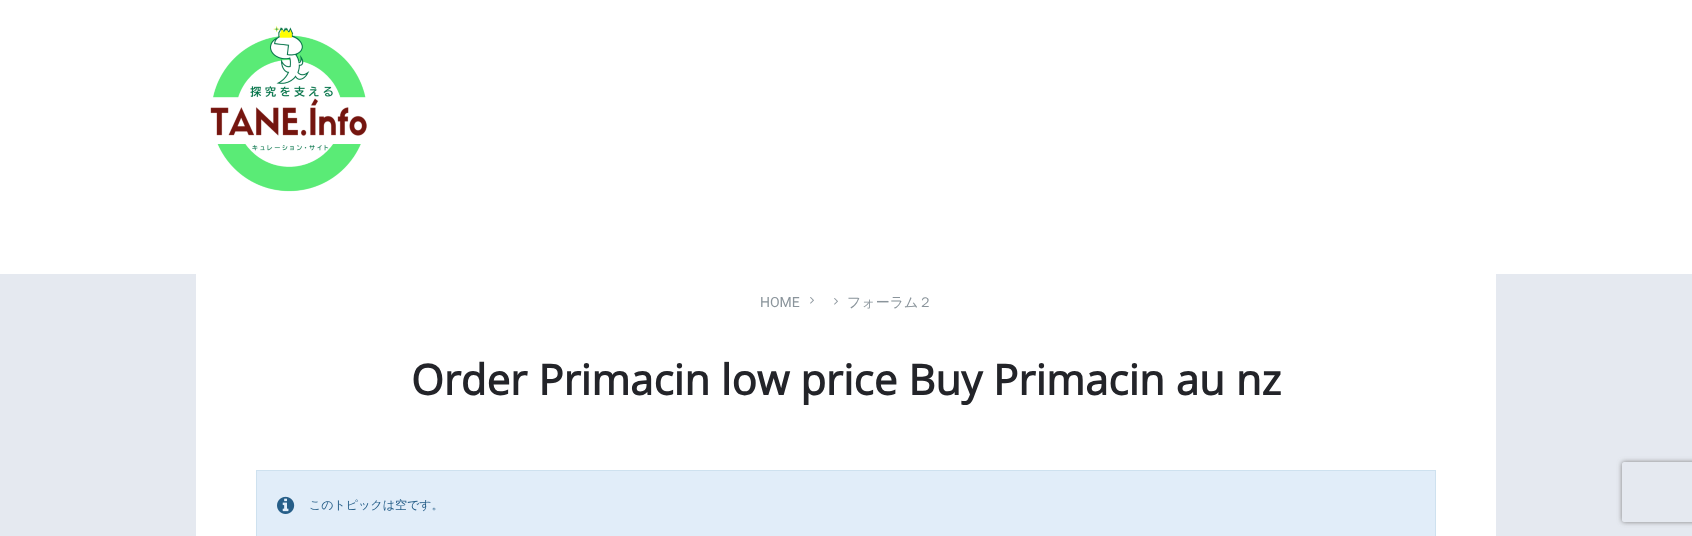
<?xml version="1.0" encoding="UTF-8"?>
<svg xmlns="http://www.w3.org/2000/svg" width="1692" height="536">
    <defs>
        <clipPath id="clip1"><path d="M 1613 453 H 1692 V 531 H 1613 Z M 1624 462 H 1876 C 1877 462 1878 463 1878 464 V 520 C 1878 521 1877 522 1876 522 H 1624 C 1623 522 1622 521 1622 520 V 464 C 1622 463 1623 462 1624 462 Z" clip-rule="evenodd"/></clipPath>
        <filter id="blur1" x="-50%" y="-200%" width="200%" height="500%"><feGaussianBlur stdDeviation="2.5"/></filter>
    </defs>
    <rect width="100%" height="100%" fill="#E5E9F0"/>
    <rect x="0" y="0" width="1692" height="274" fill="#FFFFFF"/>
    <image x="210" y="25" width="157" height="167" href="img_01.png"/>
    <rect x="196" y="274" width="1300" height="262" fill="#FFFFFF"/>
    <text x="760" y="307" font-family="Roboto" font-size="14" fill="#8A949B">HOME</text>
    <image x="810" y="297" width="4" height="7" href="img_02.png"/>
    <image x="834" y="298" width="4" height="7" href="img_02.png"/>
    <text x="847" y="307" font-family="WenQuanYi Zen Hei" font-size="14" font-weight="500" fill="#8A949B">フォーラム２</text>
    <text x="411" y="395" font-family="Open Sans" font-size="42" font-weight="700" fill="#232429">Order Primacin low price Buy Primacin au nz</text>
    <rect x="256.5" y="470.5" width="1179" height="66" fill="#E1EDF9" stroke="#CEE1EF"/>
    <image x="277" y="496" width="18" height="18" href="img_03.png"/>
    <text x="309" y="509" font-family="WenQuanYi Zen Hei" font-size="12" font-weight="500" fill="#265E88">このトピックは空です。</text>
    <g clip-path="url(#clip1)">
        <rect x="1622" y="462" width="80" height="60" rx="2" fill="#808080" filter="url(#blur1)"/>
    </g>
</svg>
